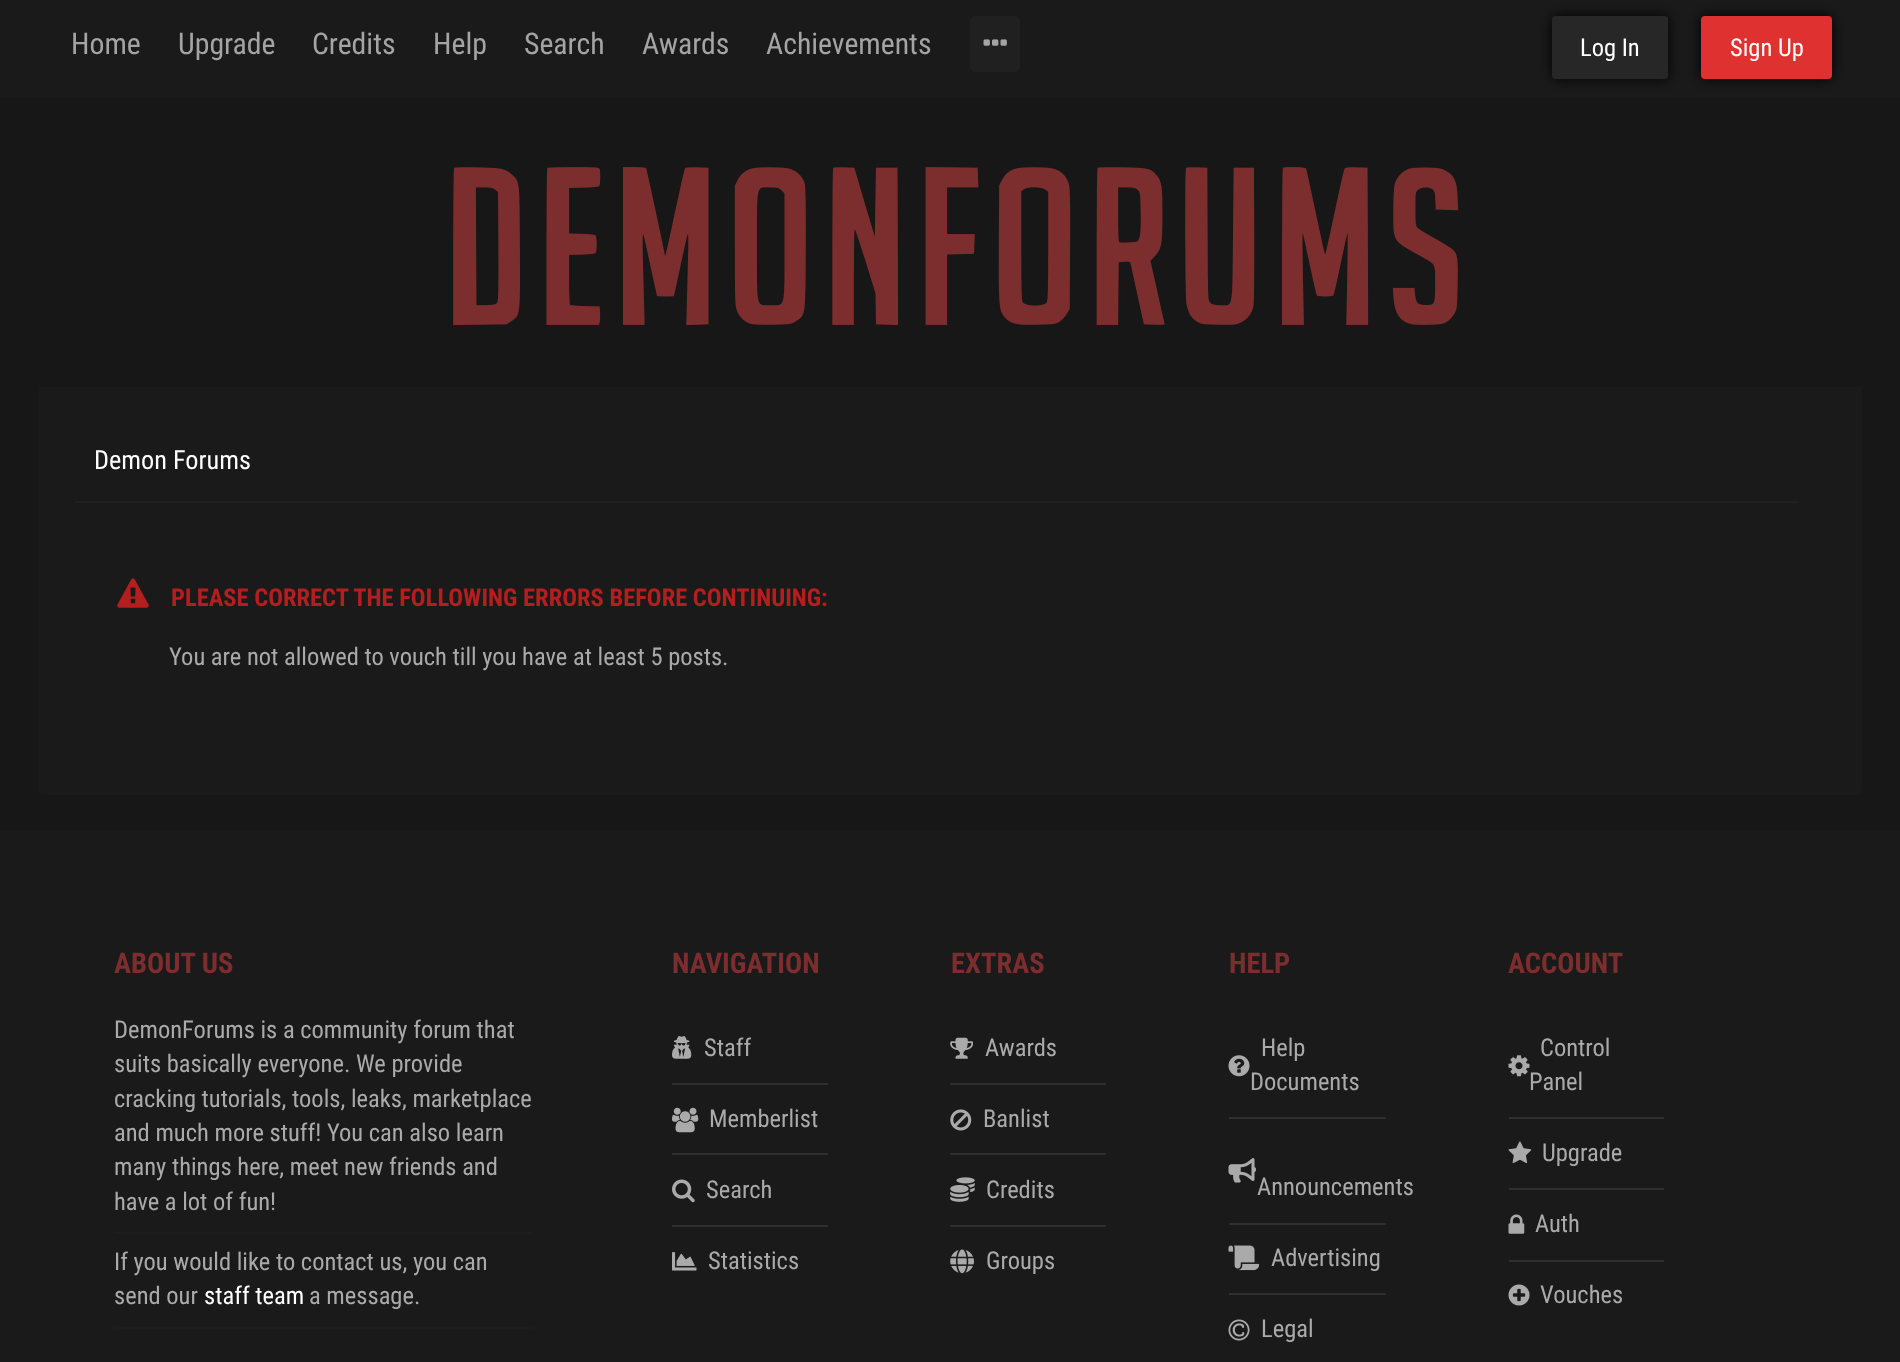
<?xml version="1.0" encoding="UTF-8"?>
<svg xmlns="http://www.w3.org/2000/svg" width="1900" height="1362">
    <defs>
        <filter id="blur1" x="-50%" y="-200%" width="200%" height="500%"><feGaussianBlur stdDeviation="7"/></filter>
    </defs>
    <rect width="100%" height="100%" fill="#171717"/>
    <rect x="0" y="0" width="1900" height="98" fill="#1A1A1A"/>
    <text x="71" y="54" font-family="Roboto Condensed" font-size="29.75" fill="#A4A4A4">Home</text>
    <text x="178" y="54" font-family="Roboto Condensed" font-size="29.75" fill="#A4A4A4">Upgrade</text>
    <text x="312" y="54" font-family="Roboto Condensed" font-size="29.75" fill="#A4A4A4">Credits</text>
    <text x="433" y="54" font-family="Roboto Condensed" font-size="29.75" fill="#A4A4A4">Help</text>
    <text x="524" y="54" font-family="Roboto Condensed" font-size="29.75" fill="#A4A4A4">Search</text>
    <text x="642" y="54" font-family="Roboto Condensed" font-size="29.75" fill="#A4A4A4">Awards</text>
    <text x="766" y="54" font-family="Roboto Condensed" font-size="29.75" fill="#A4A4A4">Achievements</text>
    <rect x="970" y="16" width="50" height="56" rx="5" fill="#202020"/>
    <image x="983" y="39" width="24" height="7" href="img_01.png"/>
    <rect x="1552" y="16" width="116" height="63" rx="4" fill="#101010" filter="url(#blur1)"/>
    <rect x="1552" y="16" width="116" height="63" rx="4" fill="#272727"/>
    <text x="1580" y="56" font-family="Roboto Condensed" font-size="24.5" fill="#FFFFFF">Log In</text>
    <rect x="1701" y="16" width="131" height="63" rx="4" fill="#101010" filter="url(#blur1)"/>
    <rect x="1701" y="16" width="131" height="63" rx="4" fill="#E03131"/>
    <text x="1730" y="56" font-family="Roboto Condensed" font-size="24.5" fill="#FFFFFF">Sign Up</text>
    <image x="453" y="167" width="1006" height="159" href="img_02.png"/>
    <path d="M 39 380 H 1862 V 791 C 1862 793 1860 795 1858 795 H 43 C 41 795 39 793 39 791 Z" fill="#1A1A1A"/>
    <rect x="39" y="380" width="1823" height="7" fill="#171717"/>
    <rect x="75" y="501" width="1724" height="2" fill="#202020"/>
    <text x="94" y="469" font-family="Roboto Condensed" font-size="26.25" fill="#FFFFFF">Demon Forums</text>
    <image x="117" y="578" width="32" height="30" href="img_03.png"/>
    <text x="171" y="606" font-family="Roboto Condensed" font-size="24.5" font-weight="700" fill="#B51E1E">PLEASE CORRECT THE FOLLOWING ERRORS BEFORE CONTINUING:</text>
    <text x="169" y="665" font-family="Roboto Condensed" font-size="24.5" fill="#AAAAAA">You are not allowed to vouch till you have at least 5 posts.</text>
    <rect x="0" y="830" width="1900" height="532" fill="#1A1A1A"/>
    <text x="114" y="973" font-family="Roboto Condensed" font-size="28.5" font-weight="700" fill="#7C2E2E">ABOUT US</text>
    <text font-family="Roboto Condensed" font-size="24.5" fill="#AAAAAA">
        <tspan x="114" y="1038">DemonForums is a community forum that</tspan>
        <tspan x="114" y="1072">suits basically everyone. We provide</tspan>
        <tspan x="114" y="1107">cracking tutorials, tools, leaks, marketplace</tspan>
        <tspan x="114" y="1141">and much more stuff! You can also learn</tspan>
        <tspan x="114" y="1175">many things here, meet new friends and</tspan>
        <tspan x="114" y="1210">have a lot of fun!</tspan>
    </text>
    <rect x="114" y="1232" width="418" height="2" fill="#1D1D1D"/>
    <text font-family="Roboto Condensed" font-size="24.5" fill="#AAAAAA">
        <tspan x="114" y="1270">If you would like to contact us, you can</tspan>
        <tspan x="114" y="1304">send our</tspan>
    </text>
    <text x="204" y="1304" font-family="Roboto Condensed" font-size="24.5" fill="#FFFFFF">staff team</text>
    <text x="309" y="1304" font-family="Roboto Condensed" font-size="24.5" fill="#AAAAAA">a message.</text>
    <rect x="114" y="1327" width="418" height="2" fill="#1D1D1D"/>
    <text x="672" y="973" font-family="Roboto Condensed" font-size="28.5" font-weight="700" fill="#7C2E2E">NAVIGATION</text>
    <rect x="672" y="1083" width="156" height="2" fill="#2F2F2F"/>
    <image x="672" y="1036" width="20" height="23" href="img_04.png"/>
    <text x="704" y="1056" font-family="Roboto Condensed" font-size="24.5" fill="#AAAAAA">Staff</text>
    <rect x="672" y="1153" width="156" height="2" fill="#2F2F2F"/>
    <image x="672" y="1107" width="27" height="26" href="img_05.png"/>
    <text x="709" y="1127" font-family="Roboto Condensed" font-size="24.5" fill="#AAAAAA">Memberlist</text>
    <rect x="672" y="1225" width="156" height="2" fill="#2F2F2F"/>
    <image x="672" y="1179" width="23" height="24" href="img_06.png"/>
    <text x="706" y="1198" font-family="Roboto Condensed" font-size="24.5" fill="#AAAAAA">Search</text>
    <image x="672" y="1252" width="25" height="19" href="img_07.png"/>
    <text x="708" y="1269" font-family="Roboto Condensed" font-size="24.5" fill="#AAAAAA">Statistics</text>
    <text x="951" y="973" font-family="Roboto Condensed" font-size="28.5" font-weight="700" fill="#7C2E2E">EXTRAS</text>
    <rect x="950" y="1083" width="156" height="2" fill="#2F2F2F"/>
    <image x="950" y="1037" width="23" height="22" href="img_08.png"/>
    <text x="985" y="1056" font-family="Roboto Condensed" font-size="24.5" fill="#AAAAAA">Awards</text>
    <rect x="950" y="1153" width="156" height="2" fill="#2F2F2F"/>
    <image x="950" y="1109" width="22" height="22" href="img_09.png"/>
    <text x="983" y="1127" font-family="Roboto Condensed" font-size="24.5" fill="#AAAAAA">Banlist</text>
    <rect x="950" y="1225" width="156" height="2" fill="#2F2F2F"/>
    <image x="950" y="1177" width="25" height="25" href="img_10.png"/>
    <text x="986" y="1198" font-family="Roboto Condensed" font-size="24.5" fill="#AAAAAA">Credits</text>
    <image x="950" y="1249" width="24" height="25" href="img_11.png"/>
    <text x="986" y="1269" font-family="Roboto Condensed" font-size="24.5" fill="#AAAAAA">Groups</text>
    <text x="1229" y="973" font-family="Roboto Condensed" font-size="28.5" font-weight="700" fill="#7C2E2E">HELP</text>
    <rect x="1229" y="1117" width="157" height="2" fill="#2F2F2F"/>
    <text x="1261" y="1056" font-family="Roboto Condensed" font-size="24.5" fill="#AAAAAA">Help</text>
    <image x="1228" y="1055" width="22" height="22" href="img_12.png"/>
    <text x="1250" y="1090" font-family="Roboto Condensed" font-size="24.5" fill="#AAAAAA">Documents</text>
    <rect x="1229" y="1223" width="157" height="2" fill="#2F2F2F"/>
    <image x="1228" y="1158" width="29" height="25" href="img_13.png"/>
    <text x="1257" y="1195" font-family="Roboto Condensed" font-size="24.5" fill="#AAAAAA">Announcements</text>
    <rect x="1229" y="1293" width="157" height="2" fill="#2F2F2F"/>
    <image x="1228" y="1245" width="32" height="26" href="img_14.png"/>
    <text x="1271" y="1266" font-family="Roboto Condensed" font-size="24.5" fill="#AAAAAA">Advertising</text>
    <image x="1228" y="1319" width="22" height="22" href="img_15.png"/>
    <text x="1261" y="1337" font-family="Roboto Condensed" font-size="24.5" fill="#AAAAAA">Legal</text>
    <text x="1508" y="973" font-family="Roboto Condensed" font-size="28.5" font-weight="700" fill="#7C2E2E">ACCOUNT</text>
    <rect x="1509" y="1117" width="155" height="2" fill="#2F2F2F"/>
    <text x="1540" y="1056" font-family="Roboto Condensed" font-size="24.5" fill="#AAAAAA">Control</text>
    <image x="1508" y="1055" width="22" height="22" href="img_16.png"/>
    <text x="1529" y="1090" font-family="Roboto Condensed" font-size="24.5" fill="#AAAAAA">Panel</text>
    <rect x="1509" y="1188" width="155" height="2" fill="#2F2F2F"/>
    <image x="1508" y="1141" width="24" height="23" href="img_17.png"/>
    <text x="1542" y="1161" font-family="Roboto Condensed" font-size="24.5" fill="#AAAAAA">Upgrade</text>
    <rect x="1509" y="1260" width="155" height="2" fill="#2F2F2F"/>
    <image x="1508" y="1214" width="17" height="20" href="img_18.png"/>
    <text x="1535" y="1232" font-family="Roboto Condensed" font-size="24.5" fill="#AAAAAA">Auth</text>
    <image x="1508" y="1284" width="22" height="22" href="img_19.png"/>
    <text x="1540" y="1303" font-family="Roboto Condensed" font-size="24.5" fill="#AAAAAA">Vouches</text>
</svg>
